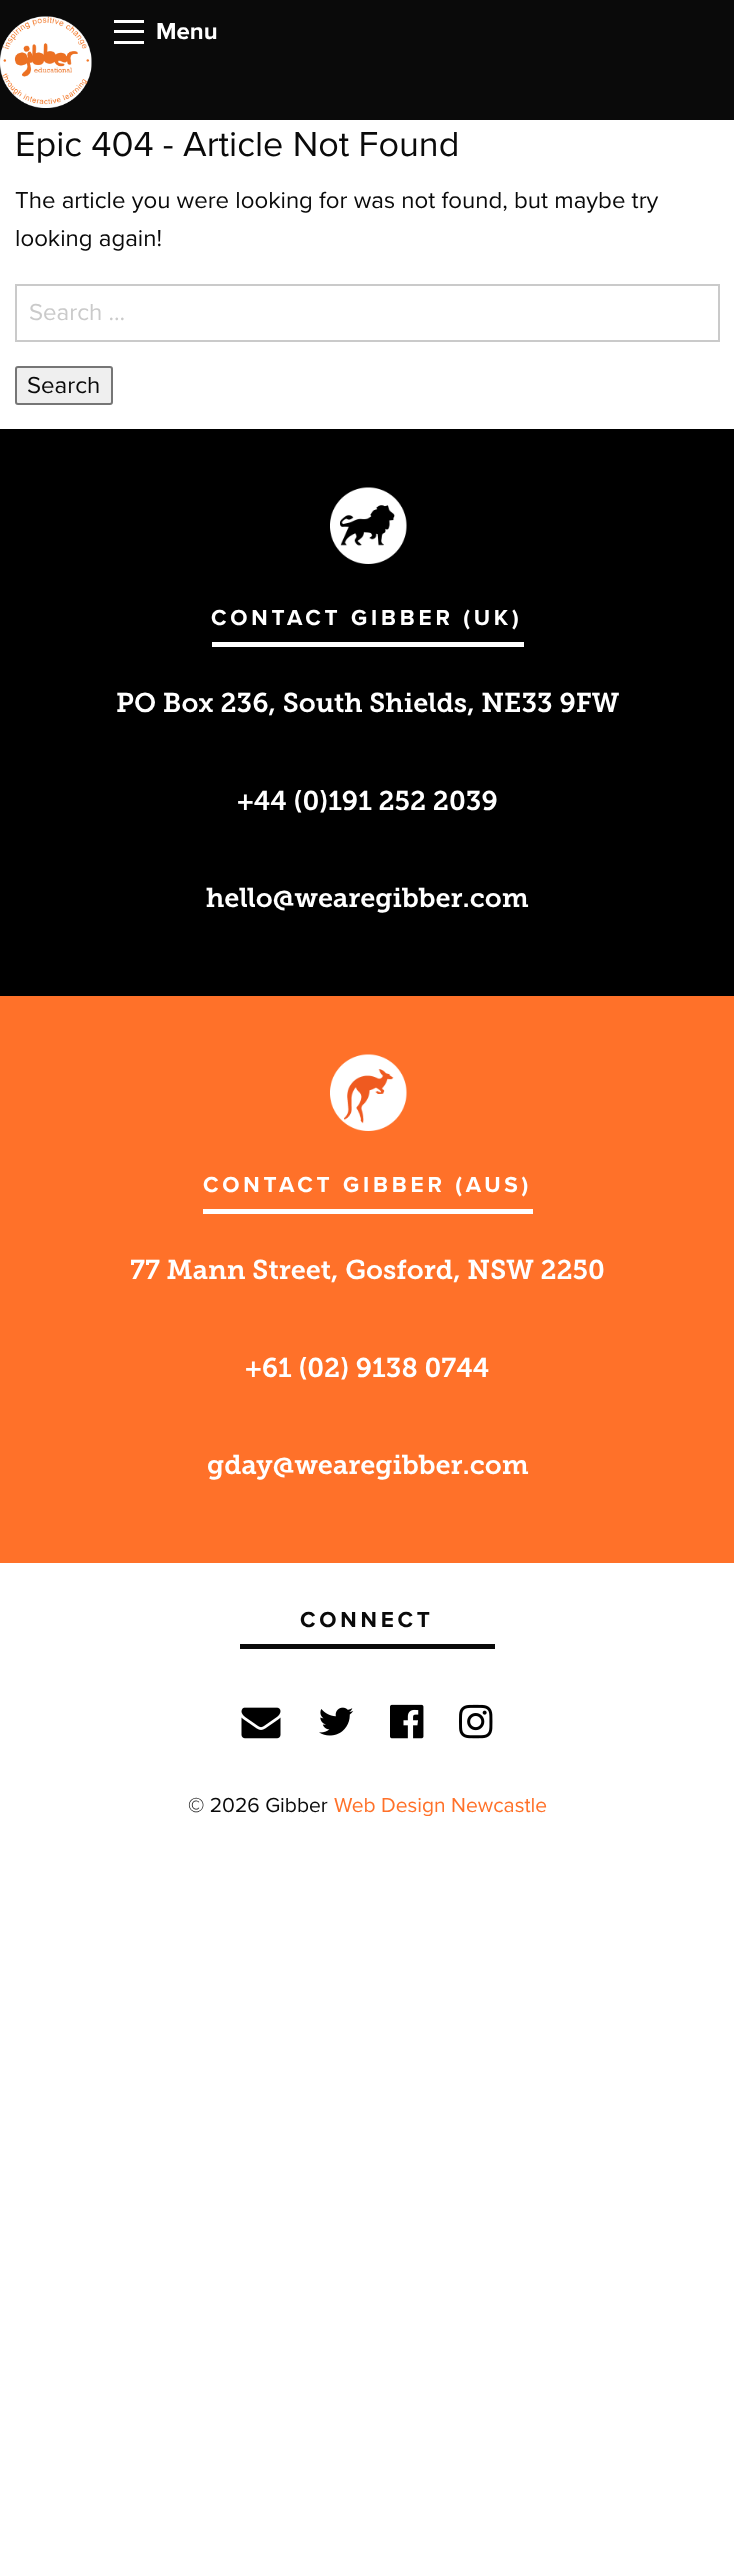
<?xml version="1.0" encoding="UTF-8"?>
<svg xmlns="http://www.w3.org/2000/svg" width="734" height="2567">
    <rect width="100%" height="100%" fill="#FFFFFF"/>
    <rect x="0" y="0" width="734" height="120" fill="#0A0A0A"/>
    <image x="0" y="16" width="92" height="92" href="img_01.png"/>
    <rect x="114" y="41" width="30" height="3" fill="#FEFEFE"/>
    <rect x="114" y="30" width="30" height="3" fill="#FEFEFE"/>
    <rect x="114" y="20" width="30" height="3" fill="#FEFEFE"/>
    <text x="156" y="39" font-family="Proxima Nova" font-size="24" font-weight="700" fill="#FFFFFF">Menu</text>
    <text x="15" y="156" font-family="Proxima Nova" font-size="36" fill="#0A0A0A">Epic 404 - Article Not Found</text>
    <text font-family="Proxima Nova" font-size="24" fill="#0A0A0A">
        <tspan x="15" y="208">The article you were looking for was not found, but maybe try</tspan>
        <tspan x="15" y="246">looking again!</tspan>
    </text>
    <rect x="16" y="285" width="703" height="56" fill="none" stroke="#CACACA" stroke-width="2"/>
    <text x="29" y="320" font-family="Proxima Nova" font-size="24" fill="#CACACA">Search …</text>
    <rect x="16" y="367" width="96" height="37" rx="2" fill="#EFEFEF" stroke="#767676" stroke-width="2"/>
    <text x="27" y="393" font-family="Proxima Nova" font-size="24" fill="#0A0A0A">Search</text>
    <rect x="0" y="429" width="734" height="567" fill="#000000"/>
    <image x="330" y="487" width="77" height="77" href="img_02.png"/>
    <rect x="212" y="642" width="312" height="5" fill="#FFFFFF"/>
    <text x="211" y="625" font-family="Proxima Nova" font-size="22.5" font-weight="700" letter-spacing="3.8" fill="#FFFFFF">CONTACT GIBBER (UK)</text>
    <text x="116" y="712" font-family="'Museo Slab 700'" font-size="27" font-weight="600" fill="#FFFFFF">PO Box 236, South Shields, NE33 9FW</text>
    <text x="237" y="810" font-family="'Museo Slab 700'" font-size="27" font-weight="600" fill="#FFFFFF">+44 (0)191 252 2039</text>
    <text x="206" y="907" font-family="'Museo Slab 700'" font-size="27" font-weight="600" fill="#FFFFFF">hello@wearegibber.com</text>
    <rect x="0" y="996" width="734" height="567" fill="#FF7129"/>
    <image x="330" y="1054" width="77" height="77" href="img_03.png"/>
    <rect x="203" y="1209" width="330" height="5" fill="#FFFFFF"/>
    <text x="203" y="1192" font-family="Proxima Nova" font-size="22.5" font-weight="700" letter-spacing="3.8" fill="#FFFFFF">CONTACT GIBBER (AUS)</text>
    <text x="130" y="1279" font-family="'Museo Slab 700'" font-size="27" font-weight="600" fill="#FFFFFF">77 Mann Street, Gosford, NSW 2250</text>
    <text x="245" y="1377" font-family="'Museo Slab 700'" font-size="27" font-weight="600" fill="#FFFFFF">+61 (02) 9138 0744</text>
    <text x="207" y="1474" font-family="'Museo Slab 700'" font-size="27" font-weight="600" fill="#FFFFFF">gday@wearegibber.com</text>
    <rect x="240" y="1644" width="255" height="5" fill="#0A0A0A"/>
    <text x="300" y="1627" font-family="Proxima Nova" font-size="22.5" font-weight="700" letter-spacing="3.8" fill="#0A0A0A">CONNECT</text>
    <image x="241" y="1707" width="40" height="32" href="img_04.png"/>
    <image x="319" y="1707" width="35" height="29" href="img_05.png"/>
    <image x="390" y="1704" width="34" height="35" href="img_06.png"/>
    <image x="459" y="1704" width="34" height="35" href="img_07.png"/>
    <text x="188" y="1812" font-family="Proxima Nova" font-size="21" fill="#0A0A0A">© 2026 Gibber</text>
    <text x="334" y="1812" font-family="Proxima Nova" font-size="21" fill="#FF7129">Web Design Newcastle</text>
</svg>
